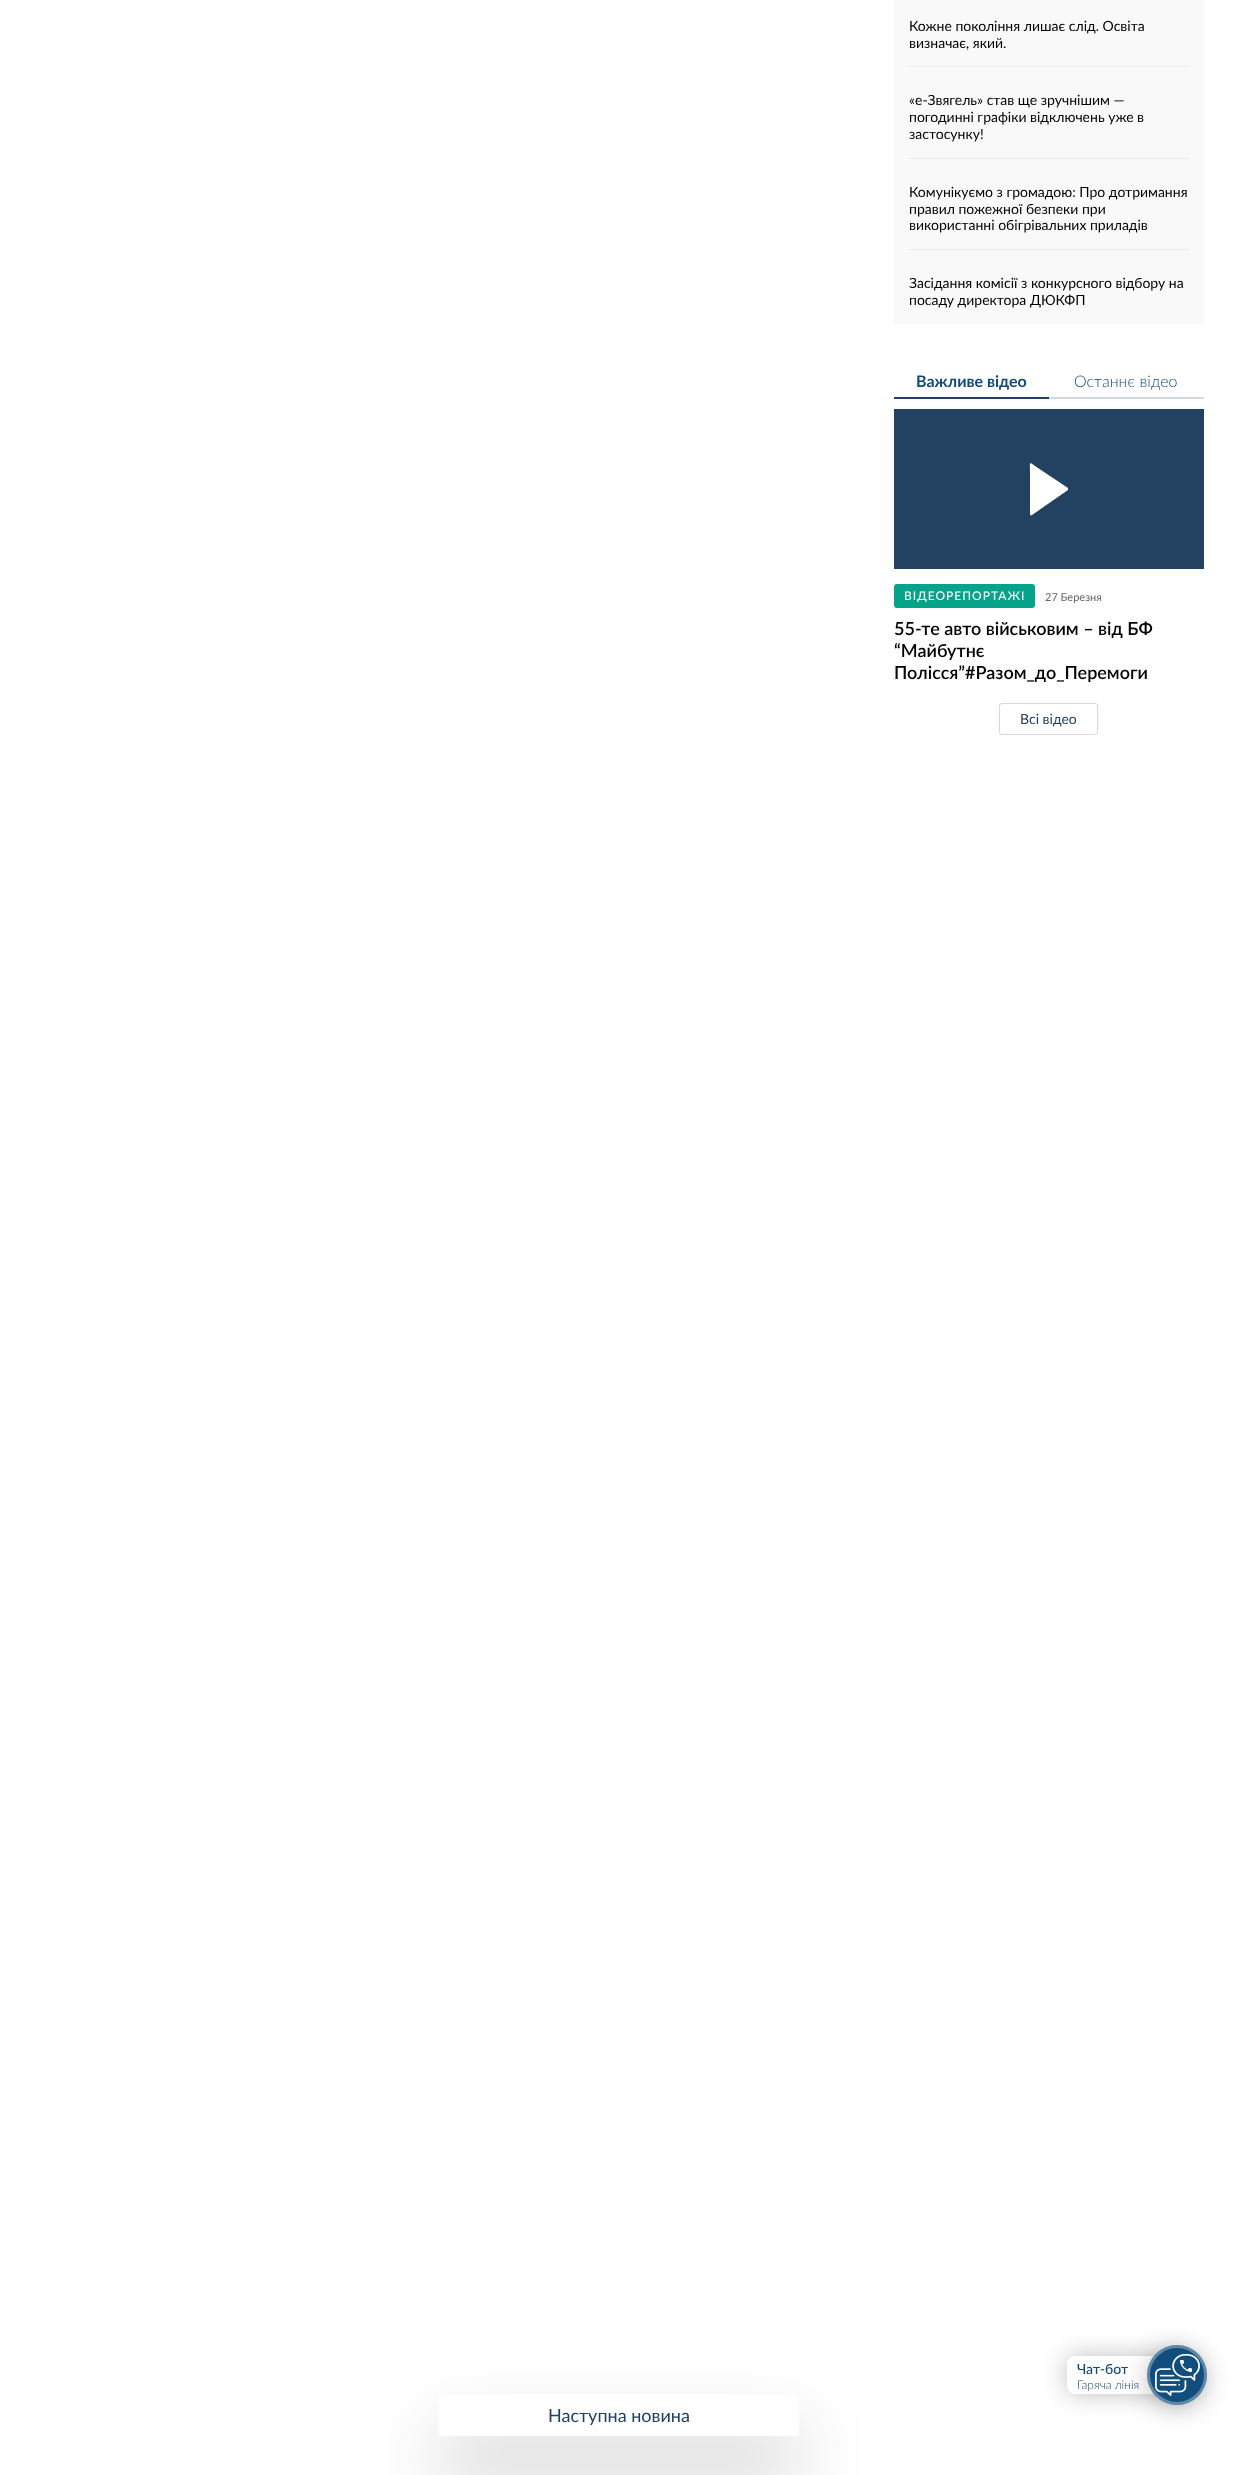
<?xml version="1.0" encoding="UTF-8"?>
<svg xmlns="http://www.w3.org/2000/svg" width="1237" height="2475">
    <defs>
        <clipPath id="clip1"><path d="M 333 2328 H 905 V 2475 H 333 Z M 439 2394 H 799 V 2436 H 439 Z" clip-rule="evenodd"/></clipPath>
        <filter id="blur1" x="-50%" y="-200%" width="200%" height="500%"><feGaussianBlur stdDeviation="35"/></filter>
        <filter id="blur2" x="-50%" y="-200%" width="200%" height="500%"><feGaussianBlur stdDeviation="12.5"/></filter>
    </defs>
    <rect width="100%" height="100%" fill="#FFFFFF"/>
    <rect x="894" y="0" width="310" height="324" fill="#F9F9F9"/>
    <rect x="909" y="66" width="280" height="1" fill="#ECECEC"/>
    <text font-family="Lato" font-size="14" fill="#000000">
        <tspan x="909" y="31">Кожне покоління лишає слід. Освіта</tspan>
        <tspan x="909" y="48">визначає, який.</tspan>
    </text>
    <rect x="909" y="158" width="280" height="1" fill="#ECECEC"/>
    <text font-family="Lato" font-size="14" fill="#000000">
        <tspan x="909" y="105">«е-Звягель» став ще зручнішим —</tspan>
        <tspan x="909" y="122">погодинні графіки відключень уже в</tspan>
        <tspan x="909" y="139">застосунку!</tspan>
    </text>
    <rect x="909" y="249" width="280" height="1" fill="#ECECEC"/>
    <text font-family="Lato" font-size="14" fill="#000000">
        <tspan x="909" y="197">Комунікуємо з громадою: Про дотримання</tspan>
        <tspan x="909" y="214">правил пожежної безпеки при</tspan>
        <tspan x="909" y="230">використанні обігрівальних приладів</tspan>
    </text>
    <text font-family="Lato" font-size="14" fill="#000000">
        <tspan x="909" y="288">Засідання комісії з конкурсного відбору на</tspan>
        <tspan x="909" y="305">посаду директора ДЮКФП</tspan>
    </text>
    <rect x="1049" y="397" width="155" height="2" fill="#D3D9DF"/>
    <text x="916" y="387" font-family="Lato" font-size="16" font-weight="700" fill="#134A7A">Важливе відео</text>
    <rect x="894" y="397" width="155" height="2" fill="#234161"/>
    <text x="1074" y="387" font-family="Lato" font-size="16" font-weight="300" fill="#134A7A">Останнє відео</text>
    <rect x="894" y="409" width="310" height="160" fill="#234161"/>
    <path d="M 1068 488 L 1038 468 C 1028 461 1030 461 1030 473 V 514 C 1030 515 1031 516 1032 515 L 1068 490 Z" fill="#FFFFFF"/>
    <rect x="894" y="584" width="141" height="24" rx="3" fill="#05A38A"/>
    <text x="904" y="600" font-family="Lato" font-size="12" font-weight="500" letter-spacing="1" fill="#FFFFFF">ВІДЕОРЕПОРТАЖІ</text>
    <text x="1045" y="601" font-family="Lato" font-size="11" fill="#666666">27 Березня</text>
    <text font-family="Lato" font-size="18" font-weight="600" fill="#000000">
        <tspan x="894" y="635">55-те авто військовим – від БФ</tspan>
        <tspan x="894" y="657">“Майбутнє</tspan>
        <tspan x="894" y="679">Полісся”#Разом_до_Перемоги</tspan>
    </text>
    <rect x="999.5" y="703.5" width="98" height="31" rx="2.5" fill="none" stroke="#D3D9DF"/>
    <text x="1020" y="724" font-family="Lato" font-size="14" fill="#234161">Всі відео</text>
    <g clip-path="url(#clip1)">
        <rect x="439" y="2434" width="360" height="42" fill="#000000" fill-opacity="0.2" filter="url(#blur1)"/>
    </g>
    <text x="548" y="2422" font-family="Lato" font-size="18" fill="#234161">Наступна новина</text>
    <rect x="1067" y="2356" width="120" height="38" rx="8" fill="#000000" fill-opacity="0.25" filter="url(#blur2)"/>
    <rect x="1067" y="2356" width="120" height="38" rx="8" fill="#FFFFFF"/>
    <rect x="1147" y="2349" width="60" height="60" rx="30" fill="#000000" fill-opacity="0.25" filter="url(#blur2)"/>
    <circle cx="1177" cy="2375" r="30" fill="#124E7D"/>
    <circle cx="1177" cy="2375" r="28.5" fill="none" stroke="#FFFFFF" stroke-opacity="0.33" stroke-width="3"/>
    <image x="1155" y="2354" width="45" height="42" href="img_01.png"/>
    <text x="1077" y="2374" font-family="Lato" font-size="14" font-weight="500" fill="#134A7A">Чат-бот</text>
    <text x="1077" y="2389" font-family="Lato" font-size="12" font-weight="300" fill="#134A7A">Гаряча лінія</text>
</svg>
